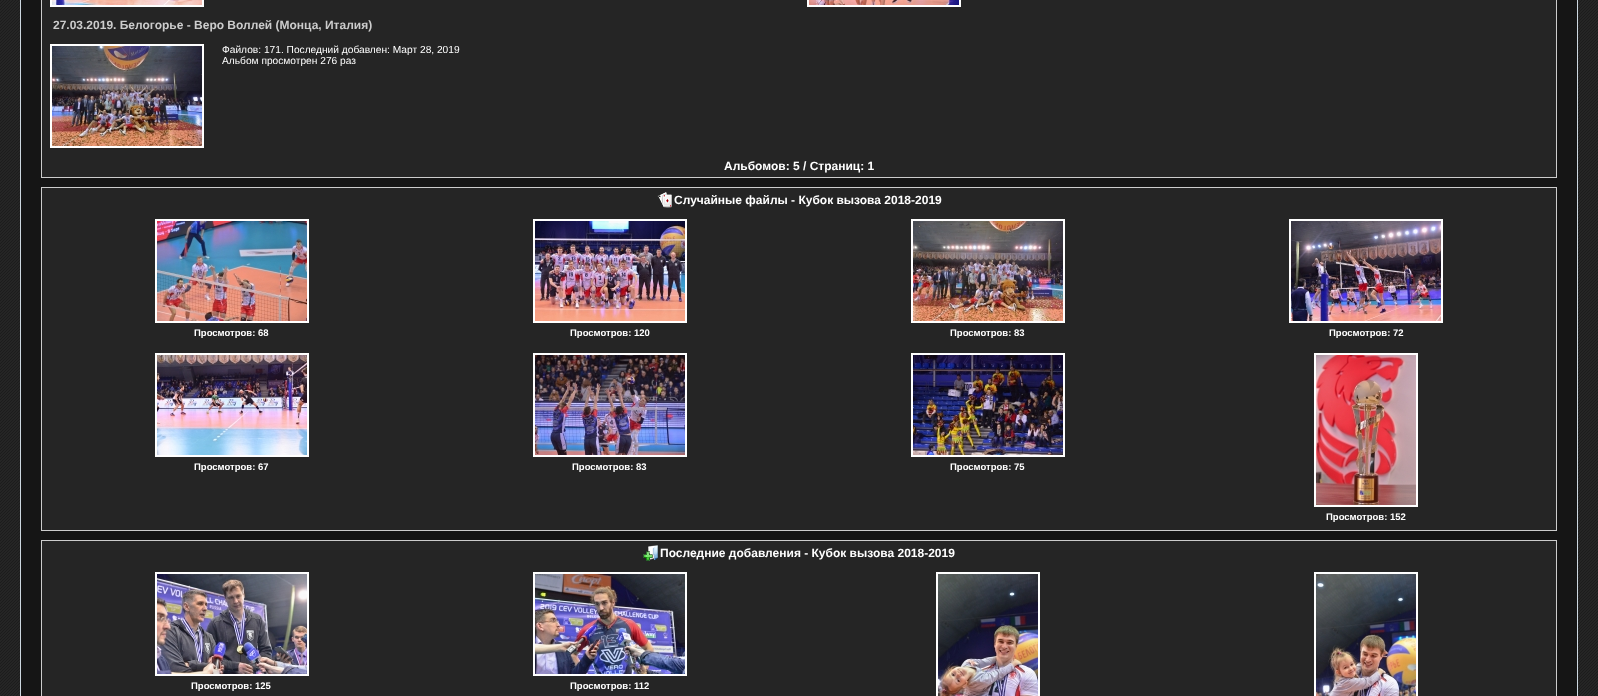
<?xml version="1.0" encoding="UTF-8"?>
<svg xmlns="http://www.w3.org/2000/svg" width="1598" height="696">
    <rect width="100%" height="100%" fill="#FFFFFF"/>
    <image x="0" y="0" width="1598" height="696" href="img_01.png"/>
    <rect x="20.5" y="-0.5" width="1557" height="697" fill="#151515" stroke="#CCD7E0"/>
    <rect x="41.5" y="-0.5" width="1515" height="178" fill="#252525" stroke="#CCCCCC"/>
    <rect x="51" y="-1" width="152" height="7" fill="none" stroke="#FFFFFF" stroke-width="2"/>
    <image x="52" y="0" width="150" height="5" href="img_02.png"/>
    <rect x="808" y="-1" width="152" height="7" fill="none" stroke="#FFFFFF" stroke-width="2"/>
    <image x="809" y="0" width="150" height="5" href="img_03.png"/>
    <text x="53" y="29" font-family="Liberation Sans" font-size="12" font-weight="700" fill="#CCCCCC">27.03.2019. Белогорье - Веро Воллей (Монца, Италия)</text>
    <rect x="51" y="45" width="152" height="102" fill="none" stroke="#FFFFFF" stroke-width="2"/>
    <image x="52" y="46" width="150" height="100" href="img_04.png"/>
    <text font-family="Liberation Sans" font-size="10.2" fill="#FFFFFF">
        <tspan x="222" y="53">Файлов: 171. Последний добавлен: Март 28, 2019</tspan>
        <tspan x="222" y="64">Альбом просмотрен 276 раз</tspan>
    </text>
    <text x="724" y="170" font-family="Liberation Sans" font-size="12" font-weight="700" fill="#FFFFFF">Альбомов: 5 / Страниц: 1</text>
    <rect x="41.5" y="187.5" width="1515" height="343" fill="#252525" stroke="#CCCCCC"/>
    <image x="657" y="192" width="15" height="16" href="img_05.png"/>
    <text x="674" y="204" font-family="Liberation Sans" font-size="12" font-weight="700" fill="#FFFFFF">Случайные файлы - Кубок вызова 2018-2019</text>
    <rect x="156" y="220" width="152" height="102" fill="none" stroke="#FFFFFF" stroke-width="2"/>
    <image x="157" y="221" width="150" height="100" href="img_06.png"/>
    <text x="194" y="336" font-family="Liberation Sans" font-size="9.5" font-weight="700" fill="#FFFFFF">Просмотров: 68</text>
    <rect x="534" y="220" width="152" height="102" fill="none" stroke="#FFFFFF" stroke-width="2"/>
    <image x="535" y="221" width="150" height="100" href="img_07.png"/>
    <text x="570" y="336" font-family="Liberation Sans" font-size="9.5" font-weight="700" fill="#FFFFFF">Просмотров: 120</text>
    <rect x="912" y="220" width="152" height="102" fill="none" stroke="#FFFFFF" stroke-width="2"/>
    <image x="913" y="221" width="150" height="100" href="img_08.png"/>
    <text x="950" y="336" font-family="Liberation Sans" font-size="9.5" font-weight="700" fill="#FFFFFF">Просмотров: 83</text>
    <rect x="1290" y="220" width="152" height="102" fill="none" stroke="#FFFFFF" stroke-width="2"/>
    <image x="1291" y="221" width="150" height="100" href="img_09.png"/>
    <text x="1329" y="336" font-family="Liberation Sans" font-size="9.5" font-weight="700" fill="#FFFFFF">Просмотров: 72</text>
    <rect x="156" y="354" width="152" height="102" fill="none" stroke="#FFFFFF" stroke-width="2"/>
    <image x="157" y="355" width="150" height="100" href="img_10.png"/>
    <text x="194" y="470" font-family="Liberation Sans" font-size="9.5" font-weight="700" fill="#FFFFFF">Просмотров: 67</text>
    <rect x="534" y="354" width="152" height="102" fill="none" stroke="#FFFFFF" stroke-width="2"/>
    <image x="535" y="355" width="150" height="100" href="img_11.png"/>
    <text x="572" y="470" font-family="Liberation Sans" font-size="9.5" font-weight="700" fill="#FFFFFF">Просмотров: 83</text>
    <rect x="912" y="354" width="152" height="102" fill="none" stroke="#FFFFFF" stroke-width="2"/>
    <image x="913" y="355" width="150" height="100" href="img_12.png"/>
    <text x="950" y="470" font-family="Liberation Sans" font-size="9.5" font-weight="700" fill="#FFFFFF">Просмотров: 75</text>
    <rect x="1315" y="354" width="102" height="152" fill="none" stroke="#FFFFFF" stroke-width="2"/>
    <image x="1316" y="355" width="100" height="150" href="img_13.png"/>
    <text x="1326" y="520" font-family="Liberation Sans" font-size="9.5" font-weight="700" fill="#FFFFFF">Просмотров: 152</text>
    <rect x="41.5" y="540.5" width="1515" height="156" fill="#252525" stroke="#CCCCCC"/>
    <image x="643" y="545" width="15" height="16" href="img_14.png"/>
    <text x="660" y="557" font-family="Liberation Sans" font-size="12" font-weight="700" fill="#FFFFFF">Последние добавления - Кубок вызова 2018-2019</text>
    <rect x="156" y="573" width="152" height="102" fill="none" stroke="#FFFFFF" stroke-width="2"/>
    <image x="157" y="574" width="150" height="100" href="img_15.png"/>
    <text x="191" y="689" font-family="Liberation Sans" font-size="9.5" font-weight="700" fill="#FFFFFF">Просмотров: 125</text>
    <rect x="534" y="573" width="152" height="102" fill="none" stroke="#FFFFFF" stroke-width="2"/>
    <image x="535" y="574" width="150" height="100" href="img_16.png"/>
    <text x="570" y="689" font-family="Liberation Sans" font-size="9.5" font-weight="700" fill="#FFFFFF">Просмотров: 112</text>
    <rect x="937" y="573" width="102" height="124" fill="none" stroke="#FFFFFF" stroke-width="2"/>
    <image x="938" y="574" width="100" height="122" href="img_17.png"/>
    <rect x="1315" y="573" width="102" height="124" fill="none" stroke="#FFFFFF" stroke-width="2"/>
    <image x="1316" y="574" width="100" height="122" href="img_18.png"/>
</svg>
